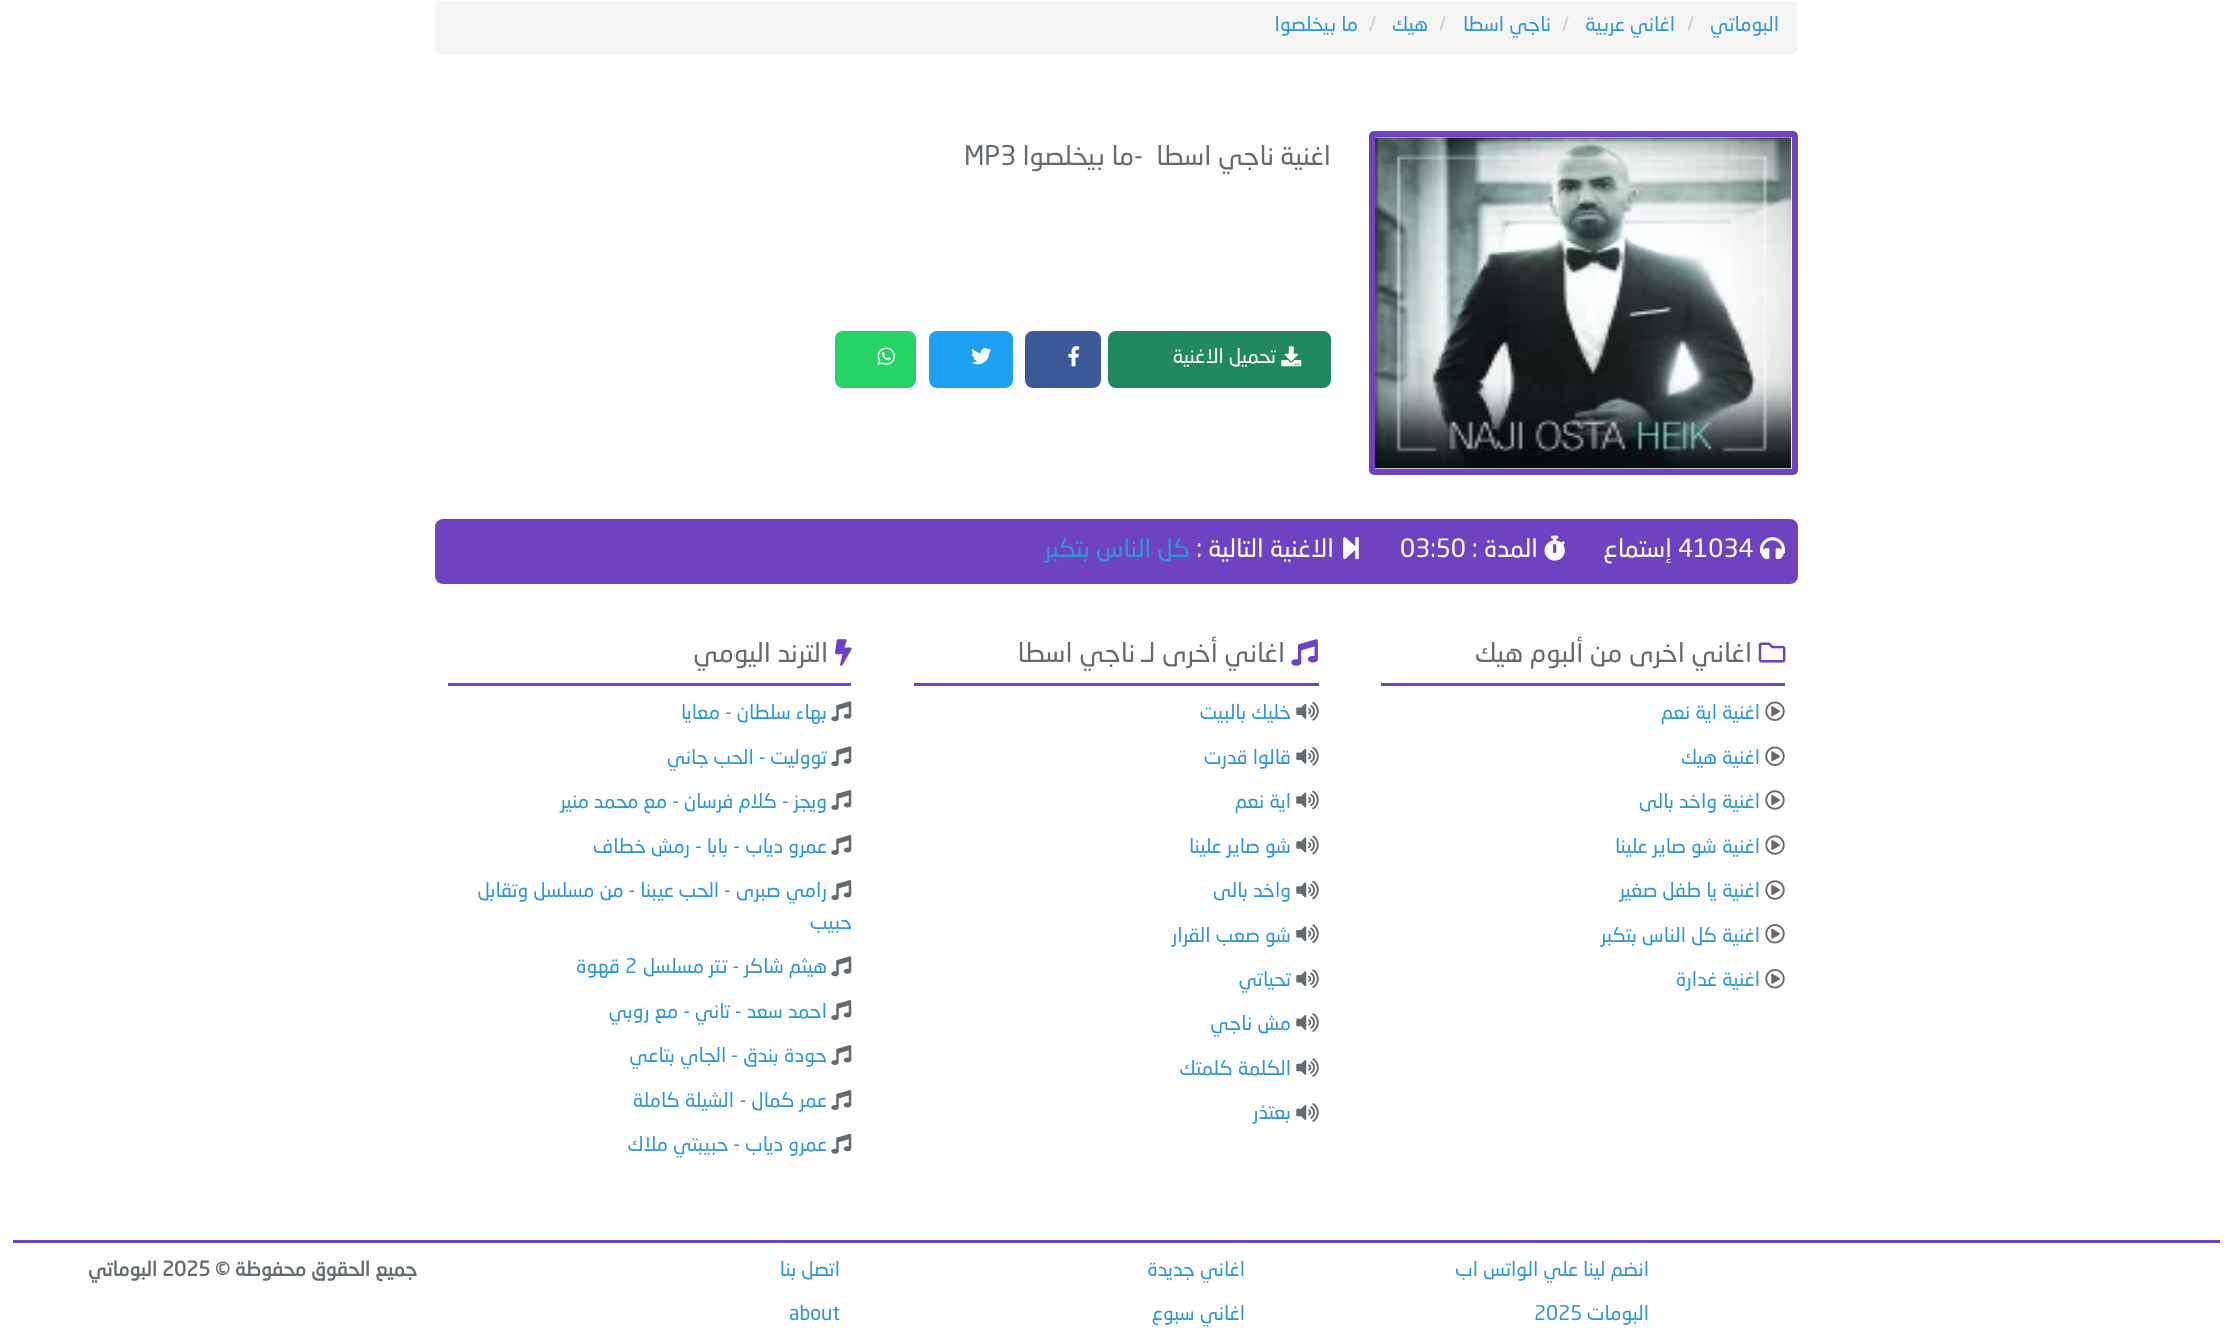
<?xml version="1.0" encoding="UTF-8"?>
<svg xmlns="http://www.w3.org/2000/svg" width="2232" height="1336">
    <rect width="100%" height="100%" fill="#FFFFFF"/>
    <rect x="435" y="1" width="1363" height="53" rx="5" fill="#F5F5F5"/>
    <text x="1779" y="31" font-family="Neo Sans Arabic" font-size="20" direction="rtl" fill="#3097D1">البوماتي</text>
    <text x="1687" y="31" font-family="Neo Sans Arabic" font-size="20" fill="#CCCCCC">/</text>
    <text x="1675" y="31" font-family="Neo Sans Arabic" font-size="20" direction="rtl" fill="#3097D1">اغاني عربية</text>
    <text x="1562" y="31" font-family="Neo Sans Arabic" font-size="20" fill="#CCCCCC">/</text>
    <text x="1551" y="31" font-family="Neo Sans Arabic" font-size="20" direction="rtl" fill="#3097D1">ناجي اسطا</text>
    <text x="1439" y="31" font-family="Neo Sans Arabic" font-size="20" fill="#CCCCCC">/</text>
    <text x="1428" y="31" font-family="Neo Sans Arabic" font-size="20" direction="rtl" fill="#3097D1">هيك</text>
    <text x="1369" y="31" font-family="Neo Sans Arabic" font-size="20" fill="#CCCCCC">/</text>
    <text x="1358" y="31" font-family="Neo Sans Arabic" font-size="20" direction="rtl" fill="#3097D1">ما بيخلصوا</text>
    <rect x="1372" y="134" width="423" height="338" rx="2" fill="none" stroke="#6F42C1" stroke-width="6"/>
    <image x="1375" y="137" width="417" height="332" href="img_01.png"/>
    <text x="1331" y="165" font-family="Neo Sans Arabic" font-size="26.75" direction="rtl" fill="#636B6F">اغنية</text>
    <text x="1274" y="165" font-family="Neo Sans Arabic" font-size="26.75" direction="rtl" fill="#636B6F">ناجي اسطا</text>
    <text x="1134" y="165" font-family="Neo Sans Arabic" font-size="26.75" fill="#636B6F">-</text>
    <text x="1134" y="165" font-family="Neo Sans Arabic" font-size="26.75" direction="rtl" fill="#636B6F">ما بيخلصوا</text>
    <text x="964" y="165" font-family="Neo Sans Arabic" font-size="26.75" fill="#636B6F">MP3</text>
    <rect x="1108" y="331" width="223" height="57" rx="8" fill="#20895E"/>
    <image x="1281" y="346" width="21" height="21" href="img_02.png"/>
    <text x="1276" y="363" font-family="Neo Sans Arabic" font-size="20" direction="rtl" fill="#FFFFFF">تحميل الاغنية</text>
    <rect x="1025" y="331" width="76" height="57" rx="8" fill="#3B5998"/>
    <image x="1068" y="346" width="12" height="21" href="img_03.png"/>
    <rect x="929" y="331" width="84" height="57" rx="8" fill="#1DA1F2"/>
    <image x="971" y="348" width="21" height="17" href="img_04.png"/>
    <rect x="835" y="331" width="81" height="57" rx="8" fill="#25D366"/>
    <image x="877" y="347" width="18" height="18" href="img_05.png"/>
    <rect x="435" y="519" width="1363" height="65" rx="8" fill="#6F42C1"/>
    <image x="1760" y="537" width="25" height="23" href="img_06.png"/>
    <text x="1678" y="557" font-family="Neo Sans Arabic" font-size="25" fill="#FFFFFF">41034</text>
    <text x="1672" y="557" font-family="Neo Sans Arabic" font-size="25" direction="rtl" fill="#FFFFFF">إستماع</text>
    <image x="1544" y="535" width="21" height="26" href="img_07.png"/>
    <text x="1538" y="557" font-family="Neo Sans Arabic" font-size="25" direction="rtl" fill="#FFFFFF">المدة :</text>
    <text x="1400" y="557" font-family="Neo Sans Arabic" font-size="25" fill="#FFFFFF">03:50</text>
    <image x="1343" y="537" width="16" height="23" href="img_08.png"/>
    <text x="1334" y="557" font-family="Neo Sans Arabic" font-size="25" direction="rtl" fill="#FFFFFF">الاغنية التالية :</text>
    <text x="1190" y="557" font-family="Neo Sans Arabic" font-size="25" direction="rtl" fill="#3097D1">كل الناس بتكبر</text>
    <rect x="1381" y="683" width="404" height="3" fill="#6F42C1"/>
    <image x="1758" y="642" width="28" height="21" href="img_09.png"/>
    <text x="1752" y="662" font-family="Neo Sans Arabic" font-size="26.75" direction="rtl" fill="#636B6F">اغاني اخرى من ألبوم هيك</text>
    <image x="1765" y="701" width="20" height="20" href="img_10.png"/>
    <text x="1760" y="719" font-family="Neo Sans Arabic" font-size="20" direction="rtl" fill="#3097D1">اغنية اية نعم</text>
    <image x="1765" y="746" width="20" height="20" href="img_10.png"/>
    <text x="1760" y="764" font-family="Neo Sans Arabic" font-size="20" direction="rtl" fill="#3097D1">اغنية هيك</text>
    <image x="1765" y="790" width="20" height="20" href="img_11.png"/>
    <text x="1760" y="808" font-family="Neo Sans Arabic" font-size="20" direction="rtl" fill="#3097D1">اغنية واخد بالى</text>
    <image x="1765" y="835" width="20" height="20" href="img_11.png"/>
    <text x="1760" y="853" font-family="Neo Sans Arabic" font-size="20" direction="rtl" fill="#3097D1">اغنية شو صاير علينا</text>
    <image x="1765" y="880" width="20" height="20" href="img_11.png"/>
    <text x="1760" y="897" font-family="Neo Sans Arabic" font-size="20" direction="rtl" fill="#3097D1">اغنية يا طفل صغير</text>
    <image x="1765" y="924" width="20" height="20" href="img_12.png"/>
    <text x="1760" y="942" font-family="Neo Sans Arabic" font-size="20" direction="rtl" fill="#3097D1">اغنية كل الناس بتكبر</text>
    <image x="1765" y="969" width="20" height="20" href="img_12.png"/>
    <text x="1760" y="986" font-family="Neo Sans Arabic" font-size="20" direction="rtl" fill="#3097D1">اغنية غدارة</text>
    <rect x="914" y="683" width="405" height="3" fill="#6F42C1"/>
    <image x="1291" y="639" width="27" height="27" href="img_13.png"/>
    <text x="1285" y="662" font-family="Neo Sans Arabic" font-size="26.75" direction="rtl" fill="#636B6F">اغاني أخرى لـ ناجي اسطا</text>
    <image x="1296" y="701" width="23" height="20" href="img_14.png"/>
    <text x="1291" y="719" font-family="Neo Sans Arabic" font-size="20" direction="rtl" fill="#3097D1">خليك بالبيت</text>
    <image x="1296" y="746" width="23" height="20" href="img_14.png"/>
    <text x="1291" y="764" font-family="Neo Sans Arabic" font-size="20" direction="rtl" fill="#3097D1">قالوا قدرت</text>
    <image x="1296" y="790" width="23" height="20" href="img_15.png"/>
    <text x="1291" y="808" font-family="Neo Sans Arabic" font-size="20" direction="rtl" fill="#3097D1">اية نعم</text>
    <image x="1296" y="835" width="23" height="20" href="img_15.png"/>
    <text x="1291" y="853" font-family="Neo Sans Arabic" font-size="20" direction="rtl" fill="#3097D1">شو صاير علينا</text>
    <image x="1296" y="880" width="23" height="20" href="img_15.png"/>
    <text x="1291" y="897" font-family="Neo Sans Arabic" font-size="20" direction="rtl" fill="#3097D1">واخد بالى</text>
    <image x="1296" y="924" width="23" height="20" href="img_16.png"/>
    <text x="1291" y="942" font-family="Neo Sans Arabic" font-size="20" direction="rtl" fill="#3097D1">شو صعب القرار</text>
    <image x="1296" y="969" width="23" height="20" href="img_16.png"/>
    <text x="1291" y="986" font-family="Neo Sans Arabic" font-size="20" direction="rtl" fill="#3097D1">تحياتي</text>
    <image x="1296" y="1013" width="23" height="19" href="img_17.png"/>
    <text x="1291" y="1030" font-family="Neo Sans Arabic" font-size="20" direction="rtl" fill="#3097D1">مش ناجي</text>
    <image x="1296" y="1058" width="23" height="19" href="img_17.png"/>
    <text x="1291" y="1075" font-family="Neo Sans Arabic" font-size="20" direction="rtl" fill="#3097D1">الكلمة كلمتك</text>
    <image x="1296" y="1103" width="23" height="19" href="img_17.png"/>
    <text x="1291" y="1119" font-family="Neo Sans Arabic" font-size="20" direction="rtl" fill="#3097D1">بعتذر</text>
    <rect x="448" y="683" width="403" height="3" fill="#6F42C1"/>
    <image x="835" y="639" width="17" height="27" href="img_18.png"/>
    <text x="828" y="662" font-family="Neo Sans Arabic" font-size="26.75" direction="rtl" fill="#636B6F">الترند اليومي</text>
    <image x="831" y="701" width="21" height="21" href="img_19.png"/>
    <text x="827" y="719" font-family="Neo Sans Arabic" font-size="20" direction="rtl" fill="#3097D1">بهاء سلطان - معايا</text>
    <image x="831" y="746" width="21" height="21" href="img_19.png"/>
    <text x="827" y="764" font-family="Neo Sans Arabic" font-size="20" direction="rtl" fill="#3097D1">تووليت - الحب جاني</text>
    <image x="831" y="790" width="21" height="20" href="img_20.png"/>
    <text x="827" y="808" font-family="Neo Sans Arabic" font-size="20" direction="rtl" fill="#3097D1">ويجز - كلام فرسان - مع محمد منير</text>
    <image x="831" y="835" width="21" height="20" href="img_20.png"/>
    <text x="827" y="853" font-family="Neo Sans Arabic" font-size="20" direction="rtl" fill="#3097D1">عمرو دياب - بابا - رمش خطاف</text>
    <image x="831" y="880" width="21" height="20" href="img_20.png"/>
    <text x="827" y="897" font-family="Neo Sans Arabic" font-size="20" direction="rtl" fill="#3097D1">رامي صبرى - الحب عيبنا - من مسلسل وتقابل</text>
    <text x="852" y="929" font-family="Neo Sans Arabic" font-size="20" direction="rtl" fill="#3097D1">حبيب</text>
    <image x="831" y="956" width="21" height="21" href="img_19.png"/>
    <text x="827" y="973" font-family="Neo Sans Arabic" font-size="20" direction="rtl" fill="#3097D1">هيثم شاكر - تتر مسلسل</text>
    <text x="625" y="973" font-family="Neo Sans Arabic" font-size="20" fill="#3097D1">2</text>
    <text x="620" y="973" font-family="Neo Sans Arabic" font-size="20" direction="rtl" fill="#3097D1">قهوة</text>
    <image x="831" y="1000" width="21" height="20" href="img_20.png"/>
    <text x="827" y="1018" font-family="Neo Sans Arabic" font-size="20" direction="rtl" fill="#3097D1">احمد سعد - تاني - مع روبي</text>
    <image x="831" y="1045" width="21" height="20" href="img_20.png"/>
    <text x="827" y="1062" font-family="Neo Sans Arabic" font-size="20" direction="rtl" fill="#3097D1">حودة بندق - الجاي بتاعي</text>
    <image x="831" y="1090" width="21" height="20" href="img_20.png"/>
    <text x="827" y="1107" font-family="Neo Sans Arabic" font-size="20" direction="rtl" fill="#3097D1">عمر كمال -</text>
    <text x="734" y="1107" font-family="Neo Sans Arabic" font-size="20" direction="rtl" fill="#3097D1">الشيلة كاملة</text>
    <image x="831" y="1133" width="21" height="21" href="img_21.png"/>
    <text x="827" y="1151" font-family="Neo Sans Arabic" font-size="20" direction="rtl" fill="#3097D1">عمرو دياب - حبيبتي ملاك</text>
    <rect x="13" y="1240" width="2207" height="3" fill="#6F42C1"/>
    <text x="1649" y="1276" font-family="Neo Sans Arabic" font-size="20" direction="rtl" fill="#3097D1">انضم لينا علي الواتس اب</text>
    <text x="1649" y="1320" font-family="Neo Sans Arabic" font-size="20" direction="rtl" fill="#3097D1">البومات</text>
    <text x="1534" y="1320" font-family="Neo Sans Arabic" font-size="20" fill="#3097D1">2025</text>
    <text x="1245" y="1276" font-family="Neo Sans Arabic" font-size="20" direction="rtl" fill="#3097D1">اغاني جديدة</text>
    <text x="1245" y="1320" font-family="Neo Sans Arabic" font-size="20" direction="rtl" fill="#3097D1">اغاني سبوع</text>
    <text x="840" y="1276" font-family="Neo Sans Arabic" font-size="20" direction="rtl" fill="#3097D1">اتصل بنا</text>
    <text x="789" y="1320" font-family="Neo Sans Arabic" font-size="20" fill="#3097D1">about</text>
    <text x="417" y="1276" font-family="Neo Sans Arabic" font-size="20" font-weight="700" direction="rtl" fill="#636B6F">جميع الحقوق محفوظة ©</text>
    <text x="162" y="1276" font-family="Neo Sans Arabic" font-size="20" font-weight="700" fill="#636B6F">2025</text>
    <text x="157" y="1276" font-family="Neo Sans Arabic" font-size="20" font-weight="700" direction="rtl" fill="#636B6F">البوماتي</text>
</svg>
